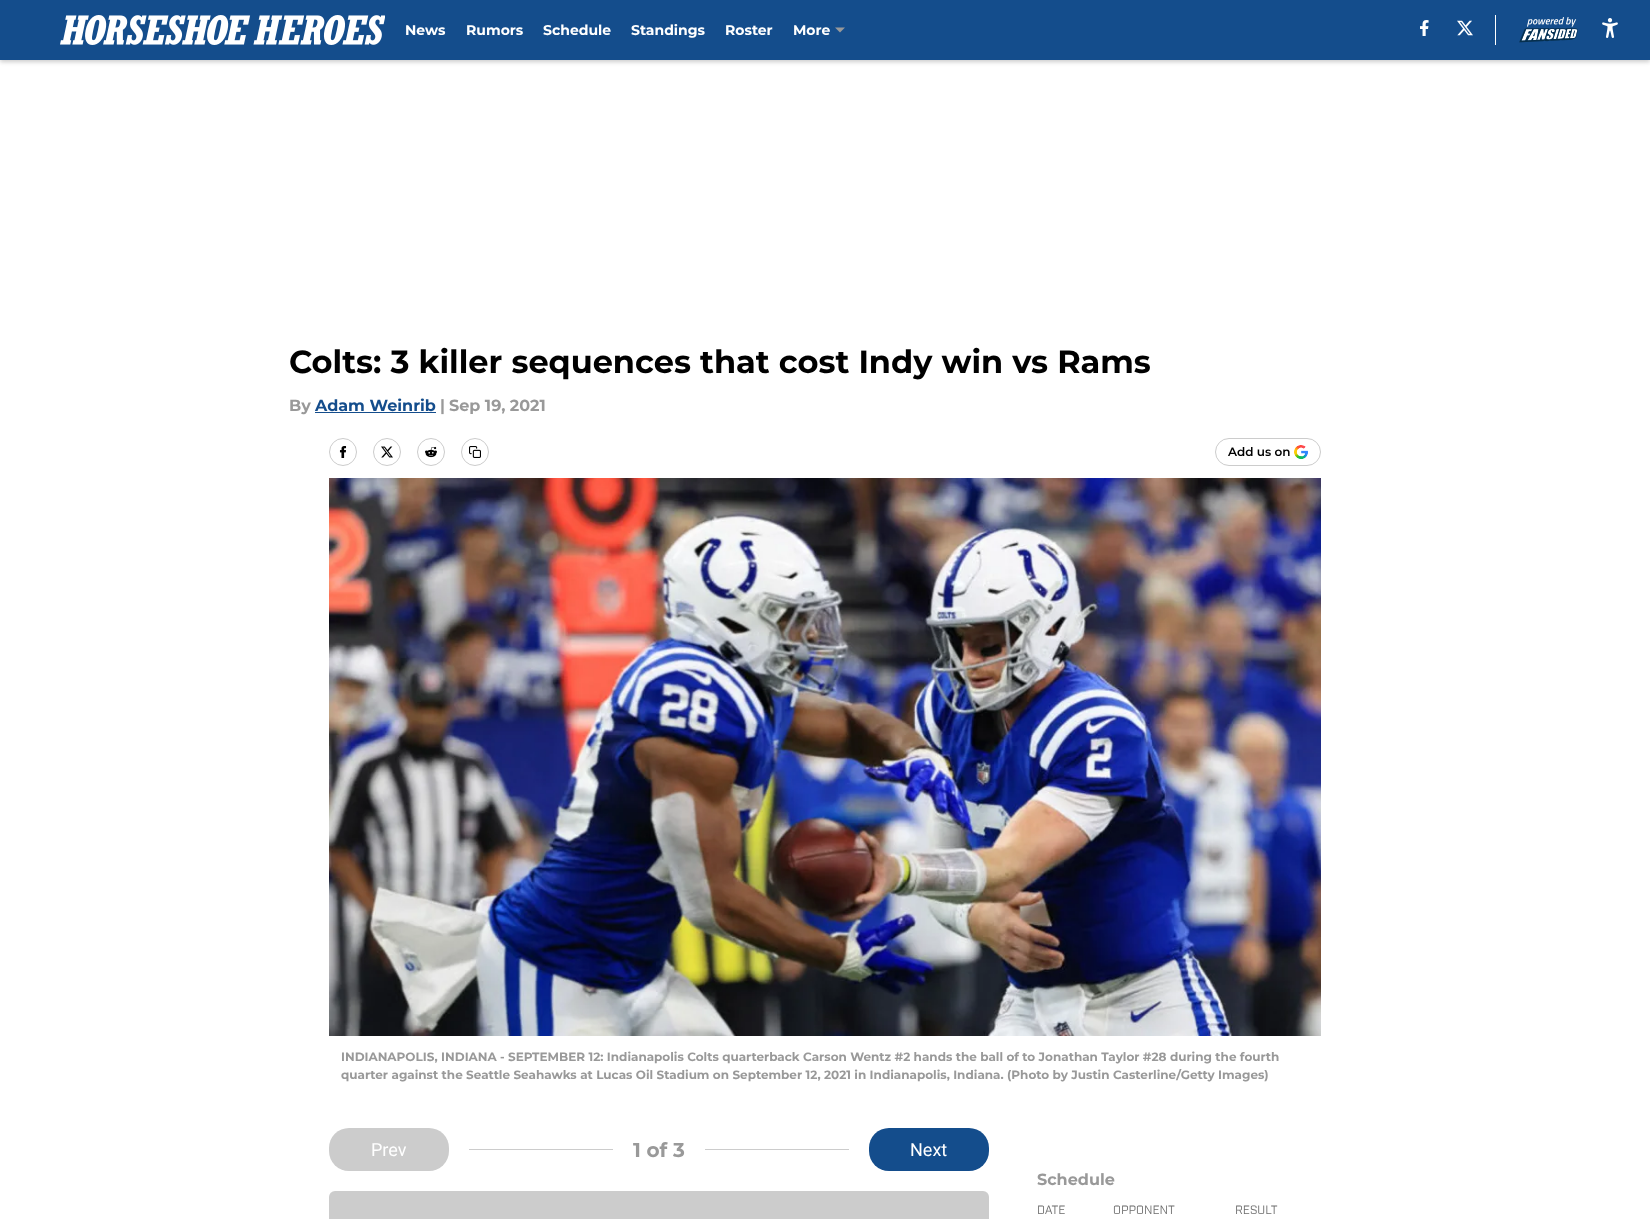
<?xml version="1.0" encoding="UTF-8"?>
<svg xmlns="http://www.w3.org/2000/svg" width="1650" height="1219">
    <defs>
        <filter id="blur1" x="-50%" y="-200%" width="200%" height="500%"><feGaussianBlur stdDeviation="2"/></filter>
    </defs>
    <rect width="100%" height="100%" fill="#FFFFFF"/>
    <rect x="0" y="2" width="1650" height="60" fill="#000000" fill-opacity="0.2" filter="url(#blur1)"/>
    <rect x="0" y="0" width="1650" height="60" fill="#144D8C"/>
    <image x="60" y="15" width="325" height="30" href="img_01.png"/>
    <text x="405" y="35" font-family="'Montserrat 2'" font-size="14" font-weight="100" fill="#FFFFFF">News</text>
    <text x="466" y="35" font-family="'Montserrat 2'" font-size="14" font-weight="100" fill="#FFFFFF">Rumors</text>
    <text x="543" y="35" font-family="'Montserrat 2'" font-size="14" font-weight="100" fill="#FFFFFF">Schedule</text>
    <text x="631" y="35" font-family="'Montserrat 2'" font-size="14" font-weight="100" fill="#FFFFFF">Standings</text>
    <text x="725" y="35" font-family="'Montserrat 2'" font-size="14" font-weight="100" fill="#FFFFFF">Roster</text>
    <text x="793" y="35" font-family="'Montserrat 2'" font-size="14" font-weight="100" fill="#FFFFFF">More</text>
    <path d="M 835 27.5 L 840 32.5 L 845 27.5 Z" fill="#999999" fill-rule="evenodd"/>
    <image x="1420" y="20" width="9" height="16" href="img_02.png"/>
    <image x="1457" y="20" width="16" height="16" href="img_03.png"/>
    <rect x="1495" y="15" width="1" height="30" fill="#FFFFFF"/>
    <image x="1519" y="17" width="59" height="26" href="img_04.png"/>
    <image x="1602" y="18" width="16" height="20" href="img_05.png"/>
    <text x="289" y="373" font-family="'Montserrat 2'" font-size="32" font-weight="100" fill="#000000">Colts: 3 killer sequences that cost Indy win vs Rams</text>
    <text x="289" y="411" font-family="'Montserrat 2'" font-size="16" font-weight="100" fill="#999999">By</text>
    <text x="315" y="411" font-family="'Montserrat 2'" font-size="16" font-weight="100" fill="#144D8C">Adam Weinrib</text>
    <rect x="315" y="412" width="121" height="1" fill="#144D8C"/>
    <text x="440" y="411" font-family="'Montserrat 2'" font-size="16" font-weight="100" fill="#999999">|</text>
    <text x="449" y="411" font-family="'Montserrat 2'" font-size="16" font-weight="100" fill="#999999">Sep 19, 2021</text>
    <circle cx="343" cy="452" r="13.5" fill="none" stroke="#CCCCCC"/>
    <image x="339" y="446" width="8" height="12" href="img_06.png"/>
    <circle cx="387" cy="452" r="13.5" fill="none" stroke="#CCCCCC"/>
    <image x="381" y="446" width="12" height="12" href="img_07.png"/>
    <circle cx="431" cy="452" r="13.5" fill="none" stroke="#CCCCCC"/>
    <image x="425" y="446" width="12" height="12" href="img_08.png"/>
    <circle cx="475" cy="452" r="13.5" fill="none" stroke="#CCCCCC"/>
    <image x="469" y="446" width="12" height="12" href="img_09.png"/>
    <rect x="1215.5" y="438.5" width="105" height="27" rx="13.5" fill="none" stroke="#CCCCCC"/>
    <text x="1228" y="456" font-family="Montserrat" font-size="12" font-weight="100" fill="#000000">Add us on</text>
    <image x="1294" y="445" width="14" height="14" href="img_10.png"/>
    <image x="329" y="478" width="992" height="558" href="img_11.png"/>
    <text font-family="'Montserrat 2'" font-size="12" font-weight="100" fill="#999999">
        <tspan x="341" y="1061">INDIANAPOLIS, INDIANA - SEPTEMBER 12: Indianapolis Colts quarterback Carson Wentz #2 hands the ball of to Jonathan Taylor #28 during the fourth</tspan>
        <tspan x="341" y="1079">quarter against the Seattle Seahawks at Lucas Oil Stadium on September 12, 2021 in Indianapolis, Indiana. (Photo by Justin Casterline/Getty Images)</tspan>
    </text>
    <rect x="329" y="1128" width="120" height="43" rx="20" fill="#CCCCCC"/>
    <text x="371" y="1156" font-family="Roboto" font-size="18" fill="#FFFFFF">Prev</text>
    <rect x="469" y="1149" width="144" height="1" fill="#CCCCCC"/>
    <text x="633" y="1157" font-family="'Montserrat 2'" font-size="20" font-weight="100" fill="#999999">1 of 3</text>
    <rect x="705" y="1149" width="144" height="1" fill="#CCCCCC"/>
    <rect x="869" y="1128" width="120" height="43" rx="20" fill="#144D8C"/>
    <text x="910" y="1156" font-family="Roboto" font-size="18" fill="#FFFFFF">Next</text>
    <rect x="329" y="1191" width="660" height="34" rx="6" fill="#CCCCCC"/>
    <text x="1037" y="1185" font-family="'Montserrat 2'" font-size="16" font-weight="100" fill="#999999">Schedule</text>
    <text x="1037" y="1214" font-family="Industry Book" font-size="12" fill="#6D6D6D">DATE</text>
    <text x="1113" y="1214" font-family="Industry Book" font-size="12" fill="#6D6D6D">OPPONENT</text>
    <text x="1235" y="1214" font-family="Industry Book" font-size="12" fill="#6D6D6D">RESULT</text>
</svg>
